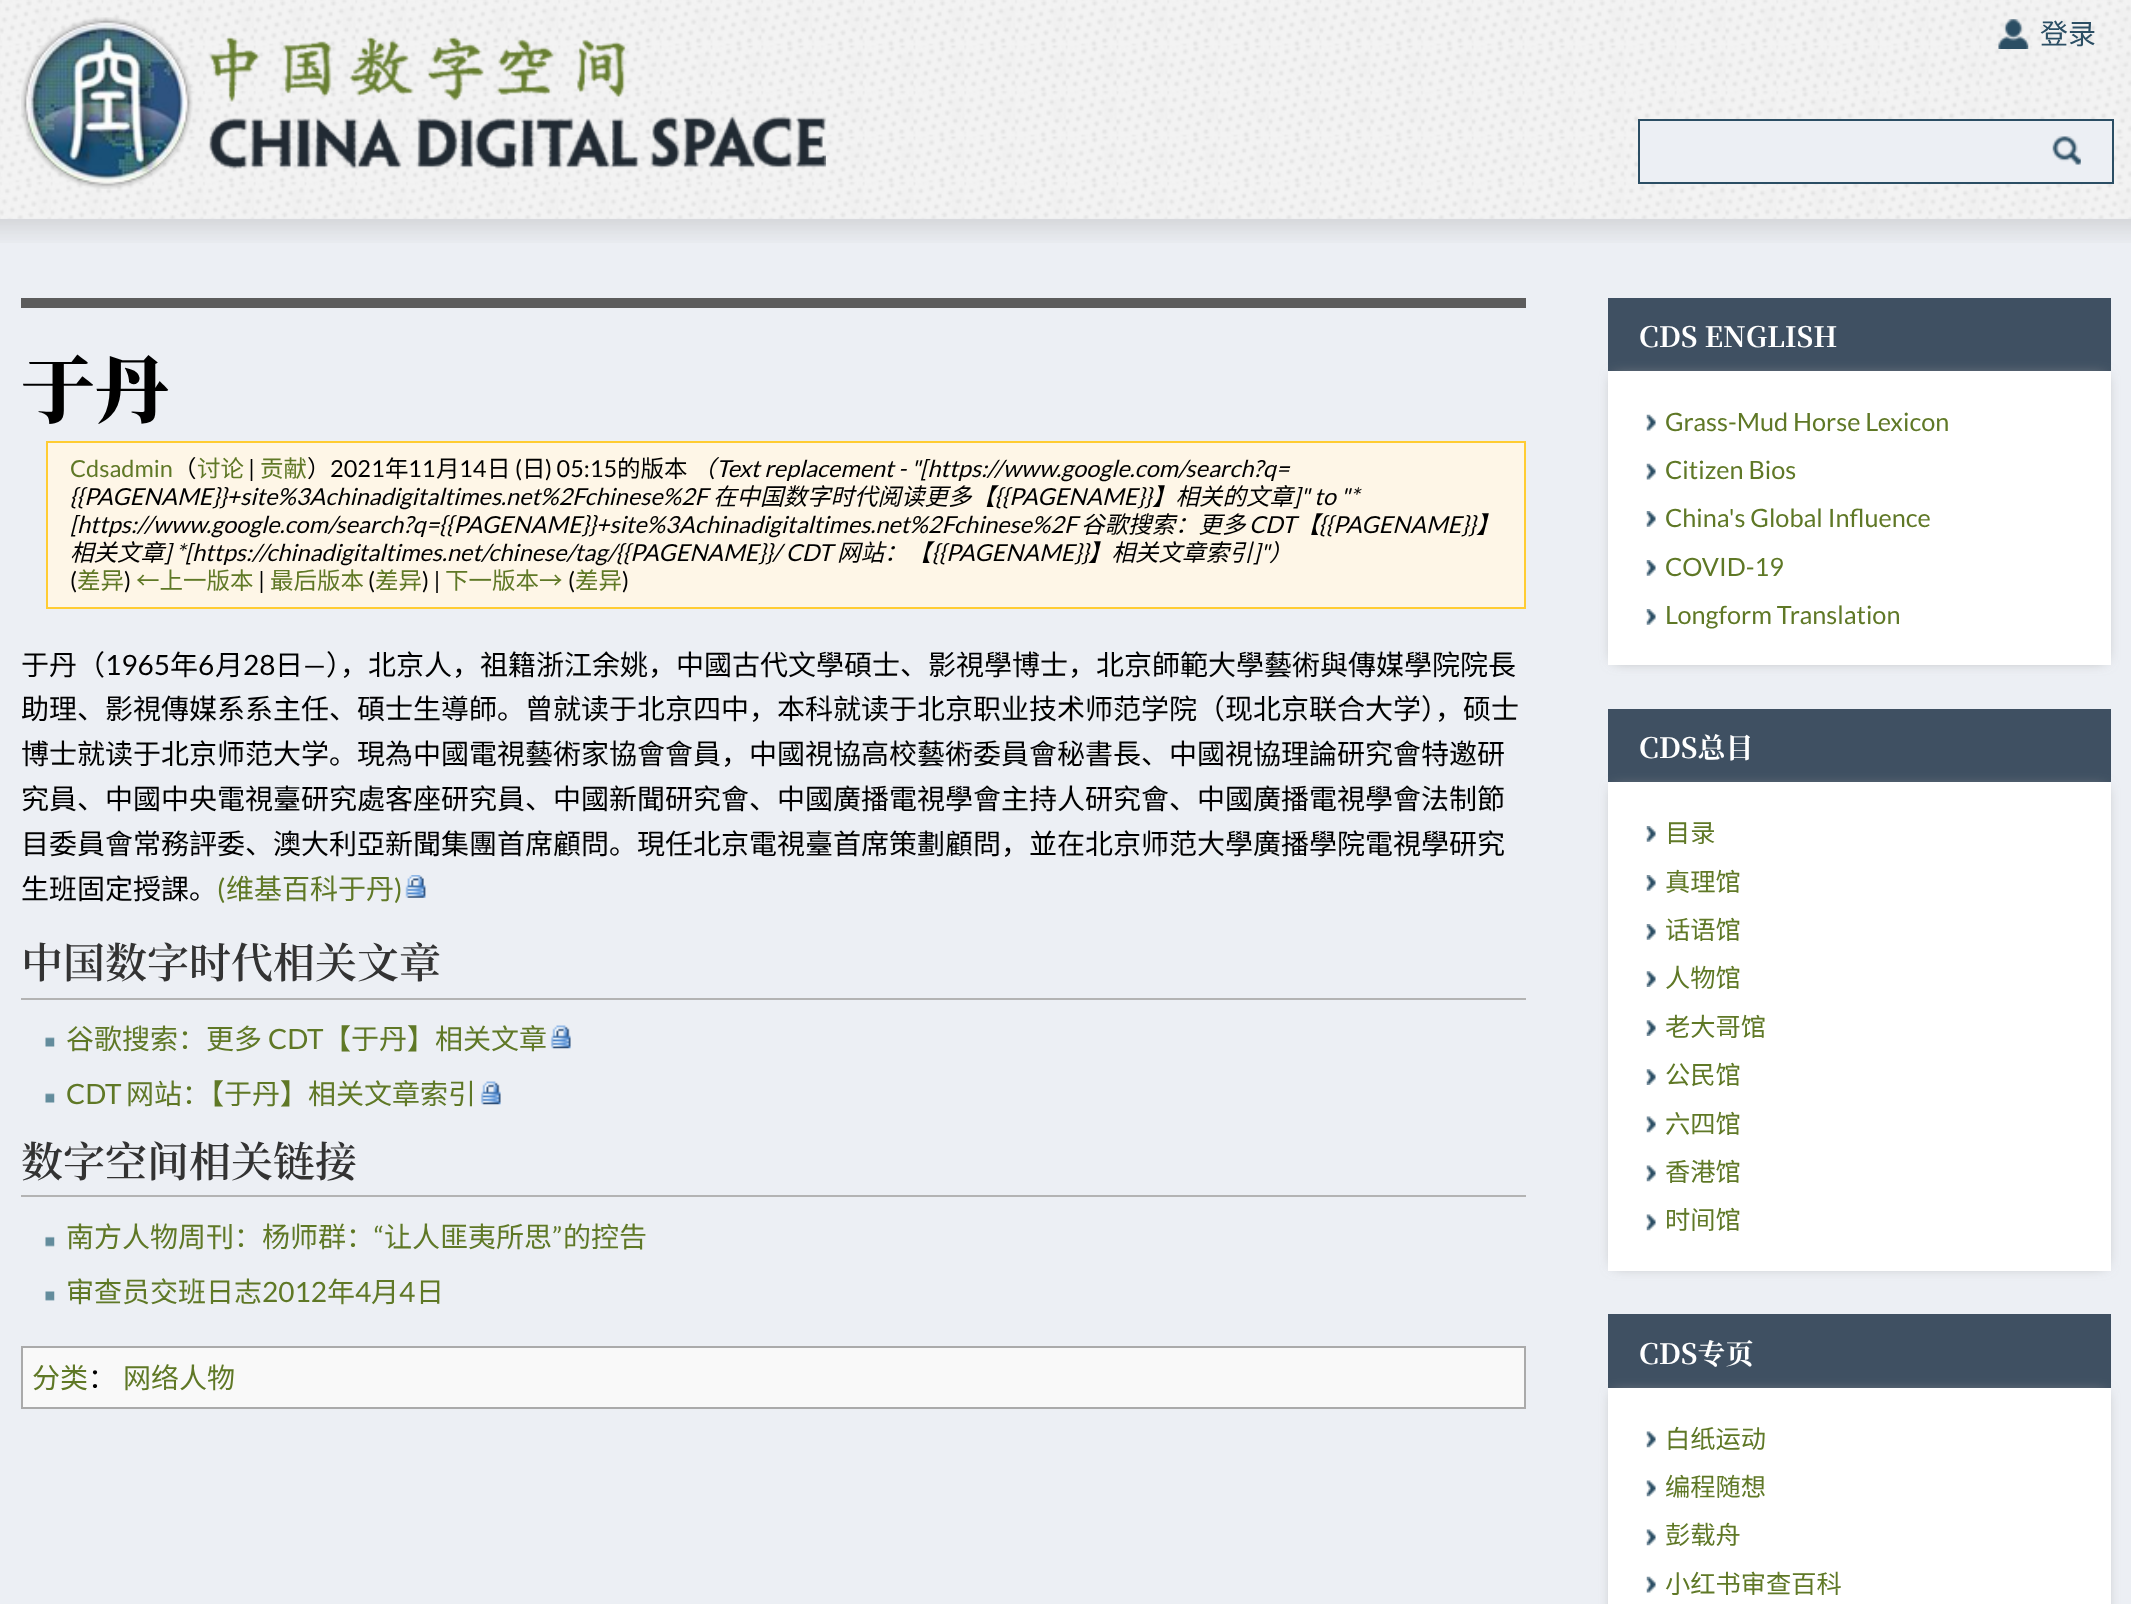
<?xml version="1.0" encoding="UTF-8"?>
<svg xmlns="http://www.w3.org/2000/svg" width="2131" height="1604">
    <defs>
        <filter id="blur1" x="-50%" y="-200%" width="200%" height="500%"><feGaussianBlur stdDeviation="7"/></filter>
    </defs>
    <rect width="100%" height="100%" fill="#ECEFF4"/>
    <image x="0" y="218" width="2131" height="25" href="img_05.png"/>
    <image x="0" y="0" width="2131" height="219" href="img_01.png"/>
    <image x="21" y="17" width="805" height="172" href="img_02.png"/>
    <image x="1998" y="19" width="31" height="30" href="img_03.png"/>
    <text x="2040" y="44" font-family="Noto Sans SC" font-size="28" font-weight="100" fill="#2B4E64">登录</text>
    <rect x="1639" y="120" width="474" height="63" fill="#ECEFF4" stroke="#2B4E64" stroke-width="2"/>
    <image x="2052" y="136" width="29" height="29" href="img_04.png"/>
    <rect x="21" y="298" width="1505" height="10" fill="#5C5C5C"/>
    <text x="21" y="417" font-family="Noto Serif SC" font-size="74" font-weight="900" fill="#000000">于丹</text>
    <rect x="47" y="442" width="1478" height="166" fill="#FEF6E7" stroke="#FFCC33" stroke-width="2"/>
    <text x="70" y="477" font-family="Lato" font-size="23.5" fill="#5F7826">Cdsadmin</text>
    <text x="173" y="477" font-family="Noto Sans SC" font-size="23.5" font-weight="100" fill="#000000">（</text>
    <text x="197" y="477" font-family="Noto Sans SC" font-size="23.5" font-weight="100" fill="#5F7826">讨论</text>
    <text x="248" y="477" font-family="Lato" font-size="23.5" fill="#000000">|</text>
    <text x="260" y="477" font-family="Noto Sans SC" font-size="23.5" font-weight="100" fill="#5F7826">贡献</text>
    <text x="307" y="477" font-family="Noto Sans SC" font-size="23.5" font-weight="100" fill="#000000">）</text>
    <text x="330" y="477" font-family="Lato" font-size="23.5" fill="#000000">2021</text>
    <text x="385" y="477" font-family="Noto Sans SC" font-size="23.5" font-weight="100" fill="#000000">年</text>
    <text x="408" y="477" font-family="Lato" font-size="23.5" fill="#000000">11</text>
    <text x="436" y="477" font-family="Noto Sans SC" font-size="23.5" font-weight="100" fill="#000000">月</text>
    <text x="459" y="477" font-family="Lato" font-size="23.5" fill="#000000">14</text>
    <text x="487" y="477" font-family="Noto Sans SC" font-size="23.5" font-weight="100" fill="#000000">日</text>
    <text x="515" y="477" font-family="Lato" font-size="23.5" fill="#000000">(</text>
    <text x="522" y="477" font-family="Noto Sans SC" font-size="23.5" font-weight="100" fill="#000000">日</text>
    <text x="545" y="477" font-family="Lato" font-size="23.5" fill="#000000">) 05:15</text>
    <text x="617" y="477" font-family="Noto Sans SC" font-size="23.5" font-weight="100" fill="#000000">的版本</text>
    <text x="692" y="477" font-family="Noto Sans SC" font-size="23.5" font-weight="100" font-style="italic" fill="#000000">（</text>
    <text x="716" y="477" font-family="Lato" font-size="23.5" font-style="italic" fill="#000000">Text replacement - "[https://www.google.com/search?q=</text>
    <text x="70" y="505" font-family="Lato" font-size="23.5" font-style="italic" fill="#000000">{{PAGENAME}}+site%3Achinadigitaltimes.net%2Fchinese%2F</text>
    <text x="713" y="505" font-family="Noto Sans SC" font-size="23.5" font-weight="100" font-style="italic" fill="#000000">在中国数字时代阅读更多【</text>
    <text x="995" y="505" font-family="Lato" font-size="23.5" font-style="italic" fill="#000000">{{PAGENAME}}</text>
    <text x="1152" y="505" font-family="Noto Sans SC" font-size="23.5" font-weight="100" font-style="italic" fill="#000000">】相关的文章</text>
    <text x="1293" y="505" font-family="Lato" font-size="23.5" font-style="italic" fill="#000000">]" to "*</text>
    <text x="70" y="533" font-family="Lato" font-size="23.5" font-style="italic" fill="#000000">[https://www.google.com/search?q={{PAGENAME}}+site%3Achinadigitaltimes.net%2Fchinese%2F</text>
    <text x="1081" y="533" font-family="Noto Sans SC" font-size="23.5" font-weight="100" font-style="italic" fill="#000000">谷歌搜索：更多</text>
    <text x="1249" y="533" font-family="Lato" font-size="23.5" font-style="italic" fill="#000000">CDT</text>
    <text x="1296" y="533" font-family="Noto Sans SC" font-size="23.5" font-weight="100" font-style="italic" fill="#000000">【</text>
    <text x="1319" y="533" font-family="Lato" font-size="23.5" font-style="italic" fill="#000000">{{PAGENAME}}</text>
    <text x="1476" y="533" font-family="Noto Sans SC" font-size="23.5" font-weight="100" font-style="italic" fill="#000000">】</text>
    <text x="70" y="561" font-family="Noto Sans SC" font-size="23.5" font-weight="100" font-style="italic" fill="#000000">相关文章</text>
    <text x="164" y="561" font-family="Lato" font-size="23.5" font-style="italic" fill="#000000">] *[https://chinadigitaltimes.net/chinese/tag/{{PAGENAME}}/ CDT</text>
    <text x="837" y="561" font-family="Noto Sans SC" font-size="23.5" font-weight="100" font-style="italic" fill="#000000">网站：【</text>
    <text x="932" y="561" font-family="Lato" font-size="23.5" font-style="italic" fill="#000000">{{PAGENAME}}</text>
    <text x="1088" y="561" font-family="Noto Sans SC" font-size="23.5" font-weight="100" font-style="italic" fill="#000000">】相关文章索引</text>
    <text x="1253" y="561" font-family="Lato" font-size="23.5" font-style="italic" fill="#000000">]"</text>
    <text x="1269" y="561" font-family="Noto Sans SC" font-size="23.5" font-weight="100" font-style="italic" fill="#000000">）</text>
    <text x="70" y="589" font-family="Lato" font-size="23.5" fill="#000000">(</text>
    <text x="77" y="589" font-family="Noto Sans SC" font-size="23.5" font-weight="100" fill="#5F7826">差异</text>
    <text x="124" y="589" font-family="Lato" font-size="23.5" fill="#000000">)</text>
    <text x="136" y="589" font-family="Noto Sans SC" font-size="23.5" font-weight="100" fill="#5F7826">←上一版本</text>
    <text x="258" y="589" font-family="Lato" font-size="23.5" fill="#000000">|</text>
    <text x="270" y="589" font-family="Noto Sans SC" font-size="23.5" font-weight="100" fill="#5F7826">最后版本</text>
    <text x="368" y="589" font-family="Lato" font-size="23.5" fill="#000000">(</text>
    <text x="375" y="589" font-family="Noto Sans SC" font-size="23.5" font-weight="100" fill="#5F7826">差异</text>
    <text x="422" y="589" font-family="Lato" font-size="23.5" fill="#000000">) |</text>
    <text x="445" y="589" font-family="Noto Sans SC" font-size="23.5" font-weight="100" fill="#5F7826">下一版本→</text>
    <text x="568" y="589" font-family="Lato" font-size="23.5" fill="#000000">(</text>
    <text x="575" y="589" font-family="Noto Sans SC" font-size="23.5" font-weight="100" fill="#5F7826">差异</text>
    <text x="622" y="589" font-family="Lato" font-size="23.5" fill="#000000">)</text>
    <text x="21" y="675" font-family="Noto Sans SC" font-size="28" font-weight="100" fill="#000000">于丹（</text>
    <text x="105" y="675" font-family="Lato" font-size="28" fill="#000000">1965</text>
    <text x="170" y="675" font-family="Noto Sans SC" font-size="28" font-weight="100" fill="#000000">年</text>
    <text x="198" y="675" font-family="Lato" font-size="28" fill="#000000">6</text>
    <text x="215" y="675" font-family="Noto Sans SC" font-size="28" font-weight="100" fill="#000000">月</text>
    <text x="243" y="675" font-family="Lato" font-size="28" fill="#000000">28</text>
    <text x="275" y="675" font-family="Noto Sans SC" font-size="28" font-weight="100" fill="#000000">日</text>
    <text x="303" y="675" font-family="Lato" font-size="28" fill="#000000">—</text>
    <text x="326" y="675" font-family="Noto Sans SC" font-size="28" font-weight="100" fill="#000000">），北京人，祖籍浙江余姚，中國古代文學碩士、影視學博士，北京師範大學藝術與傳媒學院院長</text>
    <text font-family="Noto Sans SC" font-size="28" font-weight="100" fill="#000000">
        <tspan x="21" y="719">助理、影視傳媒系系主任、碩士生導師。曾就读于北京四中，本科就读于北京职业技术师范学院（现北京联合大学），硕士</tspan>
        <tspan x="21" y="764">博士就读于北京师范大学。現為中國電視藝術家協會會員，中國視協高校藝術委員會秘書長、中國視協理論研究會特邀研</tspan>
        <tspan x="21" y="809">究員、中國中央電視臺研究處客座研究員、中國新聞研究會、中國廣播電視學會主持人研究會、中國廣播電視學會法制節</tspan>
        <tspan x="21" y="854">目委員會常務評委、澳大利亞新聞集團首席顧問。現任北京電視臺首席策劃顧問，並在北京师范大學廣播學院電視學研究</tspan>
        <tspan x="21" y="899">生班固定授課。</tspan>
    </text>
    <text x="217" y="899" font-family="Lato" font-size="28" fill="#5F7826">(</text>
    <text x="226" y="899" font-family="Noto Sans SC" font-size="28" font-weight="100" fill="#5F7826">维基百科于丹</text>
    <text x="394" y="899" font-family="Lato" font-size="28" fill="#5F7826">)</text>
    <image x="405" y="875" width="21" height="23" href="img_06.png"/>
    <rect x="21" y="998" width="1505" height="2" fill="#B3B3B3"/>
    <text x="21" y="978" font-family="Noto Serif SC" font-size="42" font-weight="600" fill="#333333">中国数字时代相关文章</text>
    <image x="45" y="1037" width="10" height="10" href="img_07.png"/>
    <text x="66" y="1049" font-family="Noto Sans SC" font-size="28" font-weight="100" fill="#5F7826">谷歌搜索：更多</text>
    <text x="268" y="1049" font-family="Lato" font-size="28" fill="#5F7826">CDT</text>
    <text x="323" y="1049" font-family="Noto Sans SC" font-size="28" font-weight="100" fill="#5F7826">【于丹】相关文章</text>
    <image x="550" y="1025" width="21" height="24" href="img_08.png"/>
    <image x="45" y="1093" width="10" height="10" href="img_07.png"/>
    <text x="66" y="1104" font-family="Lato" font-size="28" fill="#5F7826">CDT</text>
    <image x="480" y="1081" width="21" height="24" href="img_08.png"/>
    <text x="126" y="1104" font-family="Noto Sans SC" font-size="28" font-weight="100" fill="#5F7826">网站：【于丹】相关文章索引</text>
    <rect x="21" y="1195" width="1505" height="2" fill="#B3B3B3"/>
    <text x="21" y="1177" font-family="Noto Serif SC" font-size="42" font-weight="600" fill="#333333">数字空间相关链接</text>
    <image x="45" y="1236" width="10" height="11" href="img_09.png"/>
    <text x="66" y="1247" font-family="Noto Sans SC" font-size="28" font-weight="100" fill="#5F7826">南方人物周刊：杨师群：</text>
    <text x="374" y="1247" font-family="Lato" font-size="28" fill="#5F7826">“</text>
    <text x="384" y="1247" font-family="Noto Sans SC" font-size="28" font-weight="100" fill="#5F7826">让人匪夷所思</text>
    <text x="552" y="1247" font-family="Lato" font-size="28" fill="#5F7826">”</text>
    <text x="563" y="1247" font-family="Noto Sans SC" font-size="28" font-weight="100" fill="#5F7826">的控告</text>
    <image x="45" y="1291" width="10" height="10" href="img_10.png"/>
    <text x="66" y="1302" font-family="Noto Sans SC" font-size="28" font-weight="100" fill="#5F7826">审查员交班日志</text>
    <text x="262" y="1302" font-family="Lato" font-size="28" fill="#5F7826">2012</text>
    <text x="327" y="1302" font-family="Noto Sans SC" font-size="28" font-weight="100" fill="#5F7826">年</text>
    <text x="355" y="1302" font-family="Lato" font-size="28" fill="#5F7826">4</text>
    <text x="371" y="1302" font-family="Noto Sans SC" font-size="28" font-weight="100" fill="#5F7826">月</text>
    <text x="399" y="1302" font-family="Lato" font-size="28" fill="#5F7826">4</text>
    <text x="416" y="1302" font-family="Noto Sans SC" font-size="28" font-weight="100" fill="#5F7826">日</text>
    <rect x="22" y="1347" width="1503" height="61" fill="#F9F9F9" stroke="#AAAAAA" stroke-width="2"/>
    <text x="32" y="1388" font-family="Noto Sans SC" font-size="28" font-weight="100" fill="#5F7826">分类</text>
    <text x="88" y="1388" font-family="Noto Sans SC" font-size="28" font-weight="100" fill="#000000">：</text>
    <text x="123" y="1388" font-family="Noto Sans SC" font-size="28" font-weight="100" fill="#5F7826">网络人物</text>
    <rect x="1608" y="298" width="503" height="73" fill="#3F5062"/>
    <text x="1639" y="347" font-family="Noto Serif SC" font-size="28" font-weight="700" fill="#FFFFFF">CDS ENGLISH</text>
    <rect x="1614" y="376" width="491" height="284" fill="#999999" filter="url(#blur1)"/>
    <rect x="1608" y="371" width="503" height="294" fill="#FFFFFF"/>
    <image x="1646" y="414" width="10" height="17" href="img_11.png"/>
    <text x="1665" y="431" font-family="Lato" font-size="25.25" fill="#5F7826">Grass-Mud Horse Lexicon</text>
    <image x="1646" y="463" width="10" height="17" href="img_11.png"/>
    <text x="1665" y="479" font-family="Lato" font-size="25.25" fill="#5F7826">Citizen Bios</text>
    <image x="1646" y="511" width="10" height="16" href="img_12.png"/>
    <text x="1665" y="527" font-family="Lato" font-size="25.25" fill="#5F7826">China's Global Influence</text>
    <image x="1646" y="560" width="10" height="16" href="img_12.png"/>
    <text x="1665" y="576" font-family="Lato" font-size="25.25" fill="#5F7826">COVID-19</text>
    <image x="1646" y="609" width="10" height="16" href="img_12.png"/>
    <text x="1665" y="624" font-family="Lato" font-size="25.25" fill="#5F7826">Longform Translation</text>
    <rect x="1608" y="709" width="503" height="73" fill="#3F5062"/>
    <text x="1639" y="758" font-family="Noto Serif SC" font-size="28" font-weight="700" fill="#FFFFFF">CDS总目</text>
    <rect x="1614" y="788" width="491" height="477" fill="#999999" filter="url(#blur1)"/>
    <rect x="1608" y="782" width="503" height="489" fill="#FFFFFF"/>
    <image x="1646" y="826" width="10" height="16" href="img_12.png"/>
    <text x="1665" y="842" font-family="Noto Sans SC" font-size="25.25" font-weight="100" fill="#5F7826">目录</text>
    <image x="1646" y="875" width="10" height="16" href="img_12.png"/>
    <text x="1665" y="891" font-family="Noto Sans SC" font-size="25.25" font-weight="100" fill="#5F7826">真理馆</text>
    <image x="1646" y="924" width="10" height="16" href="img_12.png"/>
    <text x="1665" y="939" font-family="Noto Sans SC" font-size="25.25" font-weight="100" fill="#5F7826">话语馆</text>
    <image x="1646" y="971" width="10" height="16" href="img_13.png"/>
    <text x="1665" y="987" font-family="Noto Sans SC" font-size="25.25" font-weight="100" fill="#5F7826">人物馆</text>
    <image x="1646" y="1020" width="10" height="16" href="img_13.png"/>
    <text x="1665" y="1036" font-family="Noto Sans SC" font-size="25.25" font-weight="100" fill="#5F7826">老大哥馆</text>
    <image x="1646" y="1069" width="10" height="16" href="img_13.png"/>
    <text x="1665" y="1084" font-family="Noto Sans SC" font-size="25.25" font-weight="100" fill="#5F7826">公民馆</text>
    <image x="1646" y="1116" width="10" height="17" href="img_14.png"/>
    <text x="1665" y="1133" font-family="Noto Sans SC" font-size="25.25" font-weight="100" fill="#5F7826">六四馆</text>
    <image x="1646" y="1165" width="10" height="17" href="img_14.png"/>
    <text x="1665" y="1181" font-family="Noto Sans SC" font-size="25.25" font-weight="100" fill="#5F7826">香港馆</text>
    <image x="1646" y="1214" width="10" height="17" href="img_14.png"/>
    <text x="1665" y="1229" font-family="Noto Sans SC" font-size="25.25" font-weight="100" fill="#5F7826">时间馆</text>
    <rect x="1608" y="1314" width="503" height="74" fill="#3F5062"/>
    <text x="1639" y="1364" font-family="Noto Serif SC" font-size="28" font-weight="700" fill="#FFFFFF">CDS专页</text>
    <rect x="1614" y="1393" width="491" height="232" fill="#999999" filter="url(#blur1)"/>
    <rect x="1608" y="1388" width="503" height="216" fill="#FFFFFF"/>
    <image x="1646" y="1431" width="10" height="17" href="img_14.png"/>
    <text x="1665" y="1448" font-family="Noto Sans SC" font-size="25.25" font-weight="100" fill="#5F7826">白纸运动</text>
    <image x="1646" y="1480" width="10" height="17" href="img_14.png"/>
    <text x="1665" y="1496" font-family="Noto Sans SC" font-size="25.25" font-weight="100" fill="#5F7826">编程随想</text>
    <image x="1646" y="1529" width="10" height="17" href="img_14.png"/>
    <text x="1665" y="1544" font-family="Noto Sans SC" font-size="25.25" font-weight="100" fill="#5F7826">彭载舟</text>
    <image x="1646" y="1576" width="10" height="17" href="img_11.png"/>
    <text x="1665" y="1593" font-family="Noto Sans SC" font-size="25.25" font-weight="100" fill="#5F7826">小红书审查百科</text>
</svg>
